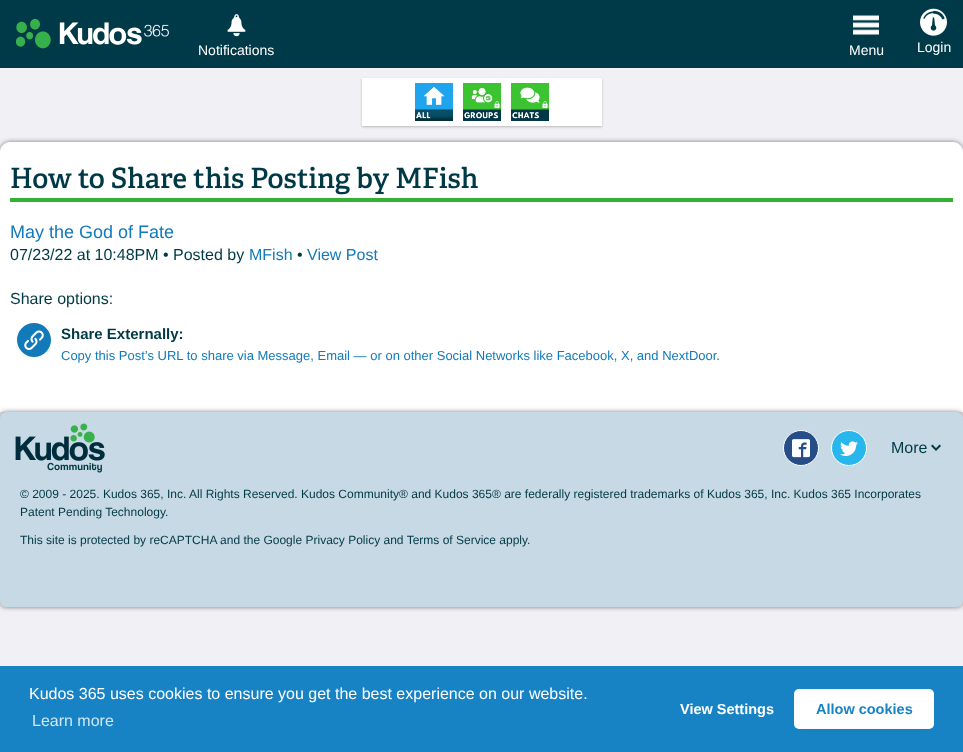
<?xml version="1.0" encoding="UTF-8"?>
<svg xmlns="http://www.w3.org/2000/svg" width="963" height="752">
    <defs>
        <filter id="blur1" x="-50%" y="-200%" width="200%" height="500%"><feGaussianBlur stdDeviation="1"/></filter>
        <filter id="blur2" x="-50%" y="-200%" width="200%" height="500%"><feGaussianBlur stdDeviation="1.5"/></filter>
        <filter id="blur3" x="-50%" y="-200%" width="200%" height="500%"><feGaussianBlur stdDeviation="2.5"/></filter>
    </defs>
    <rect width="100%" height="100%" fill="#F0F0F5"/>
    <rect x="0" y="0" width="963" height="68" fill="#003947"/>
    <image x="16" y="18" width="153" height="31" href="img_01.png"/>
    <image x="227" y="14" width="19" height="23" href="img_02.png"/>
    <text x="198" y="55" font-family="Liberation Sans" font-size="14" fill="#FFFFFF">Notifications</text>
    <image x="853" y="15" width="26" height="20" href="img_03.png"/>
    <text x="849" y="55" font-family="Liberation Sans" font-size="14" fill="#FFFFFF">Menu</text>
    <image x="920" y="8" width="27" height="28" href="img_04.png"/>
    <text x="917" y="52" font-family="Liberation Sans" font-size="14" fill="#FFFFFF">Login</text>
    <rect x="362" y="79" width="240" height="48" fill="#000000" fill-opacity="0.16" filter="url(#blur1)"/>
    <rect x="362" y="79" width="240" height="48" fill="#000000" fill-opacity="0.08" filter="url(#blur2)"/>
    <rect x="362" y="78" width="240" height="48" fill="#FFFFFF"/>
    <image x="415" y="83" width="38" height="38" href="img_05.png"/>
    <image x="463" y="83" width="38" height="38" href="img_06.png"/>
    <image x="511" y="83" width="38" height="38" href="img_07.png"/>
    <rect x="0" y="142" width="963" height="270" rx="10" fill="#000000" fill-opacity="0.5" filter="url(#blur3)"/>
    <path d="M 10 142 H 953 C 958.5 142 963 146.5 963 152 V 412 H 0 V 152 C 0 146.5 4.5 142 10 142 Z" fill="#FFFFFF"/>
    <rect x="10" y="198" width="943" height="4" fill="#34B133"/>
    <text x="10" y="188" font-family="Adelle" font-size="28" font-weight="600" fill="#003946">How to Share this Posting by MFish</text>
    <text x="10" y="238" font-family="Liberation Sans" font-size="18" fill="#137AB9">May the God of Fate</text>
    <text x="10" y="260" font-family="Liberation Sans" font-size="16" fill="#003946">07/23/22 at 10:48PM • Posted by</text>
    <text x="249" y="260" font-family="Liberation Sans" font-size="16" fill="#137AB9">MFish</text>
    <text x="297" y="260" font-family="Liberation Sans" font-size="16" fill="#003946">•</text>
    <text x="307" y="260" font-family="Liberation Sans" font-size="16" fill="#137AB9">View Post</text>
    <text x="10" y="304" font-family="Liberation Sans" font-size="16" fill="#003946">Share options:</text>
    <circle cx="34" cy="340" r="17" fill="#137AB9"/>
    <image x="24" y="330" width="20" height="20" href="img_08.png"/>
    <text x="61" y="339" font-family="Liberation Sans" font-size="15" font-weight="700" fill="#003946">Share Externally:</text>
    <text x="61" y="360" font-family="Liberation Sans" font-size="13" fill="#137AB9">Copy this Post’s URL to share via Message, Email — or on other Social Networks like Facebook, X, and NextDoor.</text>
    <rect x="0" y="412" width="963" height="195" rx="6" fill="#000000" fill-opacity="0.5" filter="url(#blur3)"/>
    <rect x="0" y="412" width="963" height="195" rx="6" fill="#C6D9E4"/>
    <image x="15" y="423" width="90" height="50" href="img_09.png"/>
    <circle cx="801" cy="448" r="17.5" fill="#264D88" stroke="#FFFFFF"/>
    <image x="792" y="439" width="18" height="19" href="img_10.png"/>
    <circle cx="849" cy="448" r="17.5" fill="#28B7ED" stroke="#FFFFFF"/>
    <image x="840" y="441" width="18" height="15" href="img_11.png"/>
    <text x="891" y="453" font-family="Liberation Sans" font-size="16" fill="#003946">More</text>
    <image x="931" y="444" width="10" height="7" href="img_12.png"/>
    <text font-family="Liberation Sans" font-size="12" fill="#003946">
        <tspan x="20" y="498">© 2009 - 2025. Kudos 365, Inc. All Rights Reserved. Kudos Community® and Kudos 365® are federally registered trademarks of Kudos 365, Inc. Kudos 365 Incorporates</tspan>
        <tspan x="20" y="516">Patent Pending Technology.</tspan>
    </text>
    <text x="20" y="544" font-family="Liberation Sans" font-size="12" fill="#003946">This site is protected by reCAPTCHA and the Google Privacy Policy and Terms of Service apply.</text>
    <rect x="0" y="666" width="963" height="86" fill="#1783C5"/>
    <text x="29" y="699" font-family="Liberation Sans" font-size="16" fill="#FFFFFF">Kudos 365 uses cookies to ensure you get the best experience on our website.</text>
    <text x="32" y="726" font-family="Liberation Sans" font-size="16" fill="#D1E6F3">Learn more</text>
    <text x="680" y="714" font-family="Liberation Sans" font-size="14.5" font-weight="700" fill="#FFFFFF">View Settings</text>
    <rect x="794" y="689" width="140" height="40" rx="5" fill="#FFFFFF"/>
    <text x="816" y="714" font-family="Liberation Sans" font-size="14.5" font-weight="700" fill="#1783C5">Allow cookies</text>
</svg>
